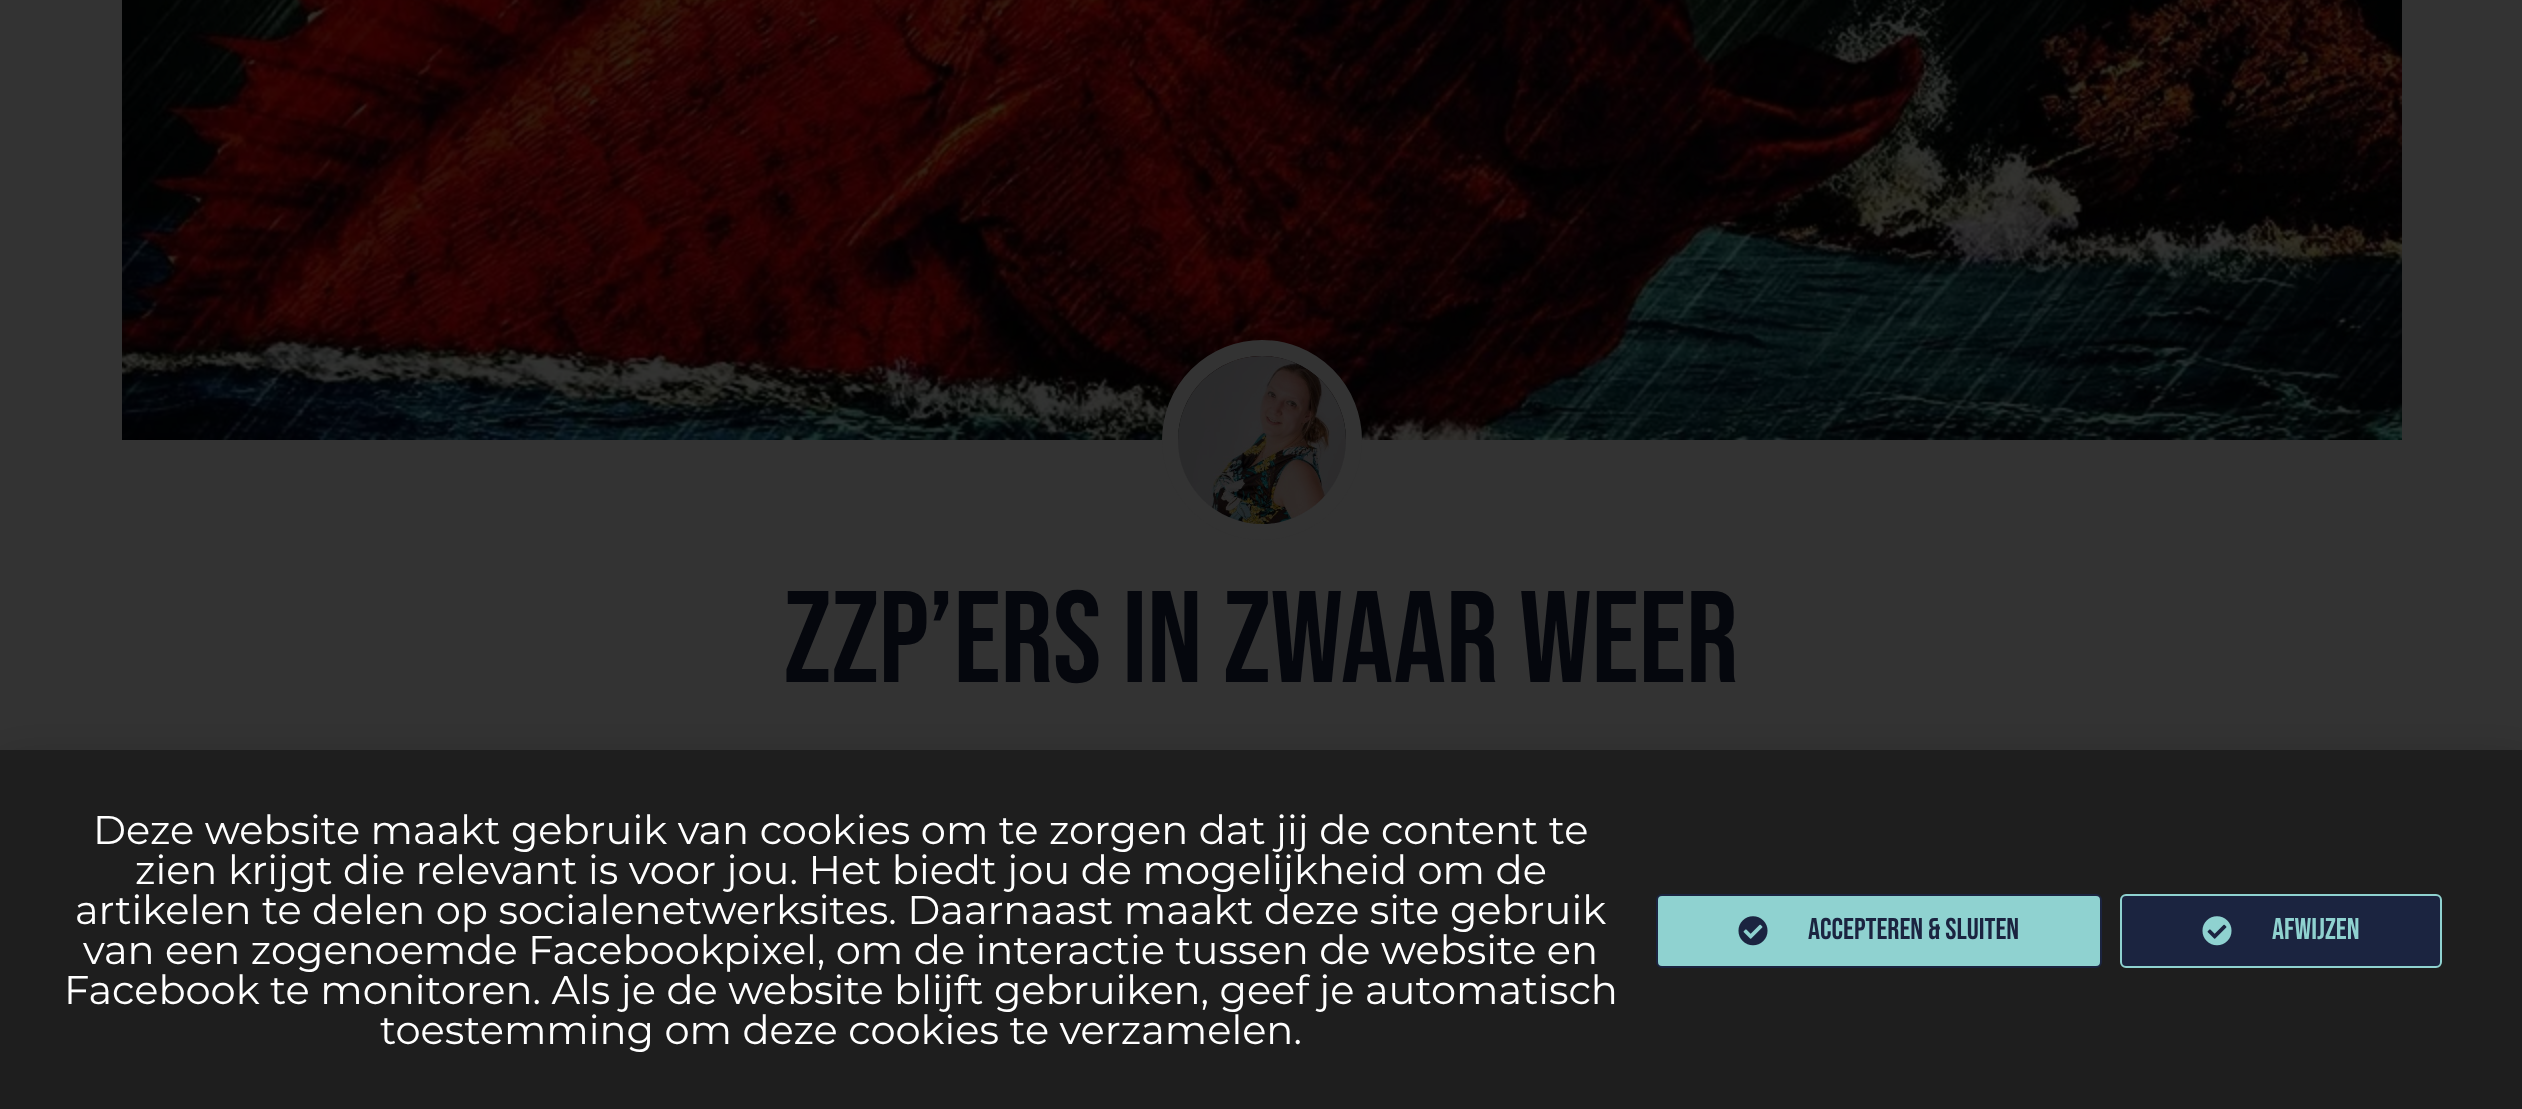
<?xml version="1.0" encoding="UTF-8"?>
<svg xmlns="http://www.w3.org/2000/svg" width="2522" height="1109">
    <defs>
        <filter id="blur1" x="-50%" y="-200%" width="200%" height="500%"><feGaussianBlur stdDeviation="23"/></filter>
    </defs>
    <rect width="100%" height="100%" fill="#333333"/>
    <image x="122" y="0" width="2280" height="440" href="img_01.png"/>
    <circle cx="1262" cy="440" r="92" fill="none" stroke="#333333" stroke-width="16"/>
    <image x="1178" y="356" width="168" height="168" href="img_02.png"/>
    <text x="784" y="682" font-family="Bebas Neue" font-size="130" fill="#05070D">Zzp’ers in zwaar weer</text>
    <rect x="-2" y="760" width="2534" height="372" fill="#000000" fill-opacity="0.2" filter="url(#blur1)"/>
    <rect x="0" y="750" width="2522" height="359" fill="#1E1E1E"/>
    <text x="93" y="844" font-family="Montserrat" font-size="40" fill="#FFFFFF">Deze website maakt gebruik van cookies om te zorgen dat jij de content te</text>
    <text x="135" y="884" font-family="Montserrat" font-size="40" fill="#FFFFFF">zien krijgt die relevant is voor jou. Het biedt jou de mogelijkheid om de</text>
    <text x="75" y="924" font-family="Montserrat" font-size="40" fill="#FFFFFF">artikelen te delen op socialenetwerksites. Daarnaast maakt deze site gebruik</text>
    <text x="83" y="964" font-family="Montserrat" font-size="40" fill="#FFFFFF">van een zogenoemde Facebookpixel, om de interactie tussen de website en</text>
    <text x="64" y="1004" font-family="Montserrat" font-size="40" fill="#FFFFFF">Facebook te monitoren. Als je de website blijft gebruiken, geef je automatisch</text>
    <text x="380" y="1044" font-family="Montserrat" font-size="40" fill="#FFFFFF">toestemming om deze cookies te verzamelen.</text>
    <rect x="1657" y="895" width="444" height="72" rx="5" fill="#8FD2D0" stroke="#1B2440" stroke-width="2"/>
    <image x="1738" y="916" width="30" height="30" href="img_03.png"/>
    <text x="1808" y="939" font-family="Bebas Neue" font-size="30" fill="#1B2440">accepteren &amp; sluiten</text>
    <rect x="2121" y="895" width="320" height="72" rx="5" fill="#1B2440" stroke="#8FD2D0" stroke-width="2"/>
    <image x="2202" y="916" width="30" height="30" href="img_04.png"/>
    <text x="2272" y="939" font-family="Bebas Neue" font-size="30" fill="#8FD2D0">afwijzen</text>
</svg>
